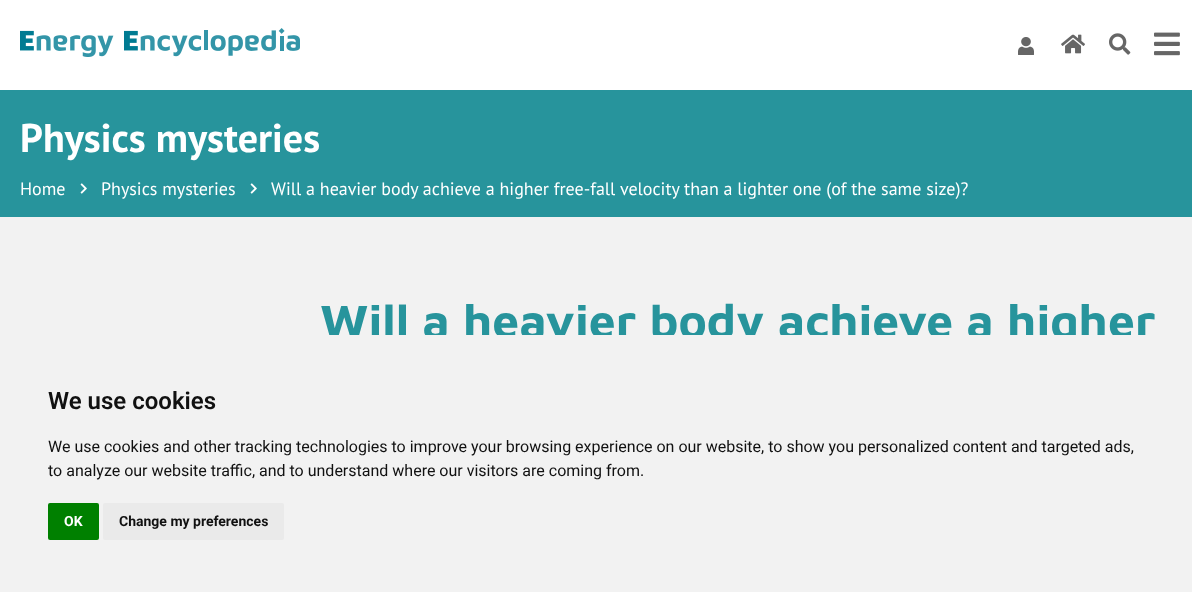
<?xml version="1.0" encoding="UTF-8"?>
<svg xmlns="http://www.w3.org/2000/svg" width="1192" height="592">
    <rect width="100%" height="100%" fill="#F2F2F2"/>
    <rect x="0" y="0" width="1192" height="90" fill="#FFFFFF"/>
    <image x="20" y="28" width="280" height="29" href="img_01.png"/>
    <image x="1018" y="37" width="16" height="18" href="img_02.png"/>
    <image x="1061" y="34" width="24" height="20" href="img_03.png"/>
    <image x="1109" y="33" width="22" height="22" href="img_04.png"/>
    <image x="1154" y="32" width="26" height="24" href="img_05.png"/>
    <rect x="0" y="90" width="1192" height="127" fill="#27949C"/>
    <text x="20" y="152" font-family="PT Sans" font-size="40" font-weight="700" fill="#FFFFFF">Physics mysteries</text>
    <text x="20" y="195" font-family="PT Sans" font-size="18" fill="#FFFFFF">Home</text>
    <image x="80" y="183" width="7" height="11" href="img_06.png"/>
    <text x="101" y="195" font-family="PT Sans" font-size="18" fill="#FFFFFF">Physics mysteries</text>
    <image x="250" y="183" width="7" height="11" href="img_06.png"/>
    <text x="271" y="195" font-family="PT Sans" font-size="18" fill="#FFFFFF">Will a heavier body achieve a higher free-fall velocity than a lighter one (of the same size)?</text>
    <text x="320" y="338" font-family="Maven Pro" font-size="48" font-weight="700" fill="#27949C">Will a heavier body achieve a higher</text>
    <rect x="329" y="335" width="817" height="14" fill="#F2F2F2"/>
    <text x="48" y="409" font-family="Roboto" font-size="24" font-weight="600" fill="#111111">We use cookies</text>
    <text font-family="Roboto" font-size="16" fill="#111111">
        <tspan x="48" y="452">We use cookies and other tracking technologies to improve your browsing experience on our website, to show you personalized content and targeted ads,</tspan>
        <tspan x="48" y="476">to analyze our website traffic, and to understand where our visitors are coming from.</tspan>
    </text>
    <rect x="48" y="503" width="51" height="37" rx="2" fill="#008000"/>
    <text x="64" y="526" font-family="Roboto" font-size="14" font-weight="700" fill="#FFFFFF">OK</text>
    <rect x="103" y="503" width="181" height="37" rx="2" fill="#EAEAEA"/>
    <text x="119" y="526" font-family="Roboto" font-size="14" font-weight="700" fill="#111111">Change my preferences</text>
</svg>
